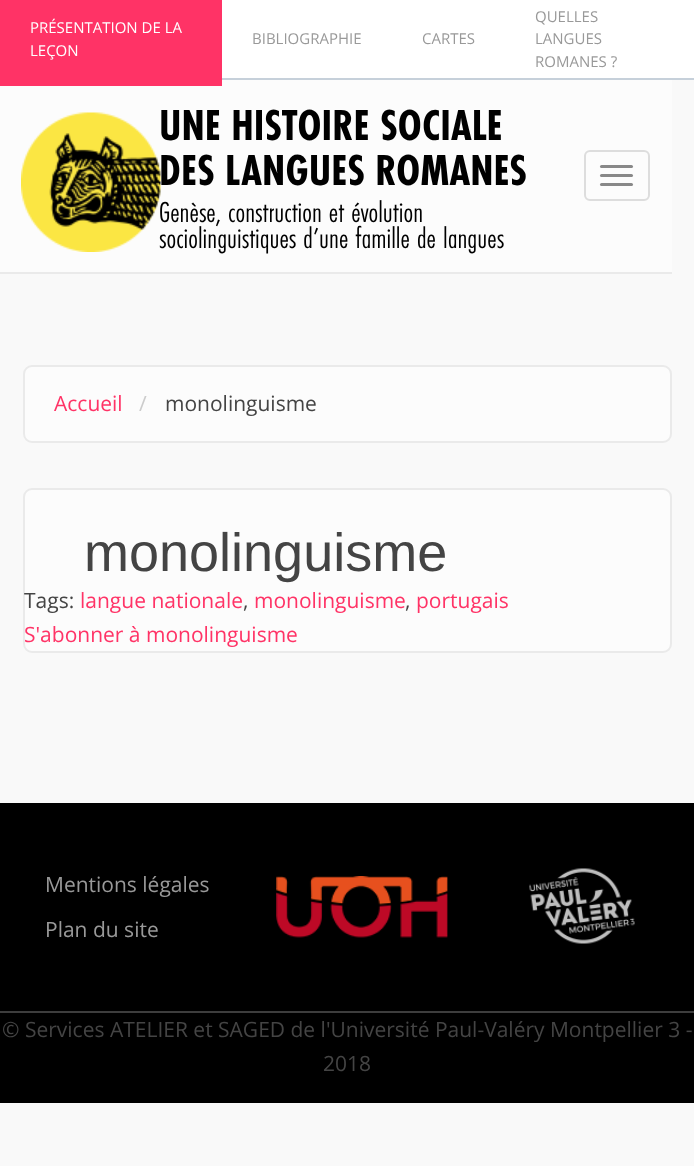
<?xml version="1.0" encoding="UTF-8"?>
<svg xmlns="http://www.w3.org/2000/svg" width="694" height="1166">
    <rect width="100%" height="100%" fill="#F9F9F9"/>
    <rect x="222" y="0" width="472" height="78" fill="#FFFFFF"/>
    <rect x="222" y="78" width="472" height="2" fill="#C6D0DA"/>
    <rect x="0" y="80" width="672" height="192" fill="#FCFCFC"/>
    <rect x="0" y="0" width="222" height="86" fill="#FF3366"/>
    <text font-family="Open Sans" font-size="15" fill="#FFFFFF">
        <tspan x="30" y="33">PRÉSENTATION DE LA</tspan>
        <tspan x="30" y="56">LEÇON</tspan>
    </text>
    <text x="252" y="44" font-family="Open Sans" font-size="15" fill="#999999">BIBLIOGRAPHIE</text>
    <text x="422" y="44" font-family="Open Sans" font-size="15" fill="#999999">CARTES</text>
    <text font-family="Open Sans" font-size="15" fill="#999999">
        <tspan x="535" y="22">QUELLES</tspan>
        <tspan x="535" y="44">LANGUES</tspan>
        <tspan x="535" y="67">ROMANES ?</tspan>
    </text>
    <rect x="0" y="272" width="672" height="2" fill="#EAEAEA"/>
    <image x="21" y="112" width="140" height="140" href="img_01.png"/>
    <text font-family="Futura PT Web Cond" font-size="45" font-weight="700" fill="#000000">
        <tspan x="159" y="140">UNE HISTOIRE SOCIALE</tspan>
        <tspan x="159" y="185">DES LANGUES ROMANES</tspan>
    </text>
    <text font-family="Futura PT Web Cond" font-size="30" fill="#000000">
        <tspan x="159" y="222">Genèse, construction et évolution</tspan>
        <tspan x="159" y="248">sociolinguistiques d’une famille de langues</tspan>
    </text>
    <rect x="585" y="151" width="64" height="49" rx="5" fill="none" stroke="#DDDDDD" stroke-width="2"/>
    <rect x="600" y="165" width="33" height="3" rx="1.5" fill="#888888"/>
    <rect x="600" y="174" width="33" height="3" rx="1.5" fill="#888888"/>
    <rect x="600" y="183" width="33" height="3" rx="1.5" fill="#888888"/>
    <rect x="24" y="366" width="647" height="76" rx="8" fill="#FCFCFC" stroke="#EAEAEA" stroke-width="2"/>
    <text x="54" y="411" font-family="Open Sans" font-size="21" fill="#FF3366">Accueil</text>
    <text x="139" y="411" font-family="Open Sans" font-size="21" fill="#CCCCCC">/</text>
    <text x="165" y="411" font-family="Open Sans" font-size="21" fill="#444444">monolinguisme</text>
    <rect x="24" y="489" width="647" height="163" rx="8" fill="#FCFCFC" stroke="#EAEAEA" stroke-width="2"/>
    <text x="84" y="571" font-family="Liberation Sans" font-size="54" fill="#444444">monolinguisme</text>
    <text x="24" y="608" font-family="Open Sans" font-size="21" fill="#444444">Tags:</text>
    <text x="80" y="608" font-family="Open Sans" font-size="21" fill="#FF3366">langue nationale</text>
    <text x="243" y="608" font-family="Open Sans" font-size="21" fill="#444444">,</text>
    <text x="254" y="608" font-family="Open Sans" font-size="21" fill="#FF3366">monolinguisme</text>
    <text x="405" y="608" font-family="Open Sans" font-size="21" fill="#444444">,</text>
    <text x="416" y="608" font-family="Open Sans" font-size="21" fill="#FF3366">portugais</text>
    <text x="24" y="642" font-family="Open Sans" font-size="21" fill="#FF3366">S'abonner à monolinguisme</text>
    <rect x="0" y="803" width="694" height="208" fill="#000000"/>
    <rect x="0" y="1011" width="694" height="2" fill="#3D3D3D"/>
    <text x="45" y="892" font-family="Open Sans" font-size="21" fill="#999999">Mentions légales</text>
    <text x="45" y="937" font-family="Open Sans" font-size="21" fill="#999999">Plan du site</text>
    <image x="276" y="876" width="172" height="62" href="img_02.png"/>
    <image x="529" y="868" width="106" height="76" href="img_03.png"/>
    <rect x="0" y="1013" width="694" height="90" fill="#000000"/>
    <text x="2" y="1037" font-family="Open Sans" font-size="21" fill="#444444">© Services ATELIER et SAGED de l'Université Paul-Valéry Montpellier 3 -</text>
    <text x="323" y="1071" font-family="Open Sans" font-size="21" fill="#444444">2018</text>
</svg>
